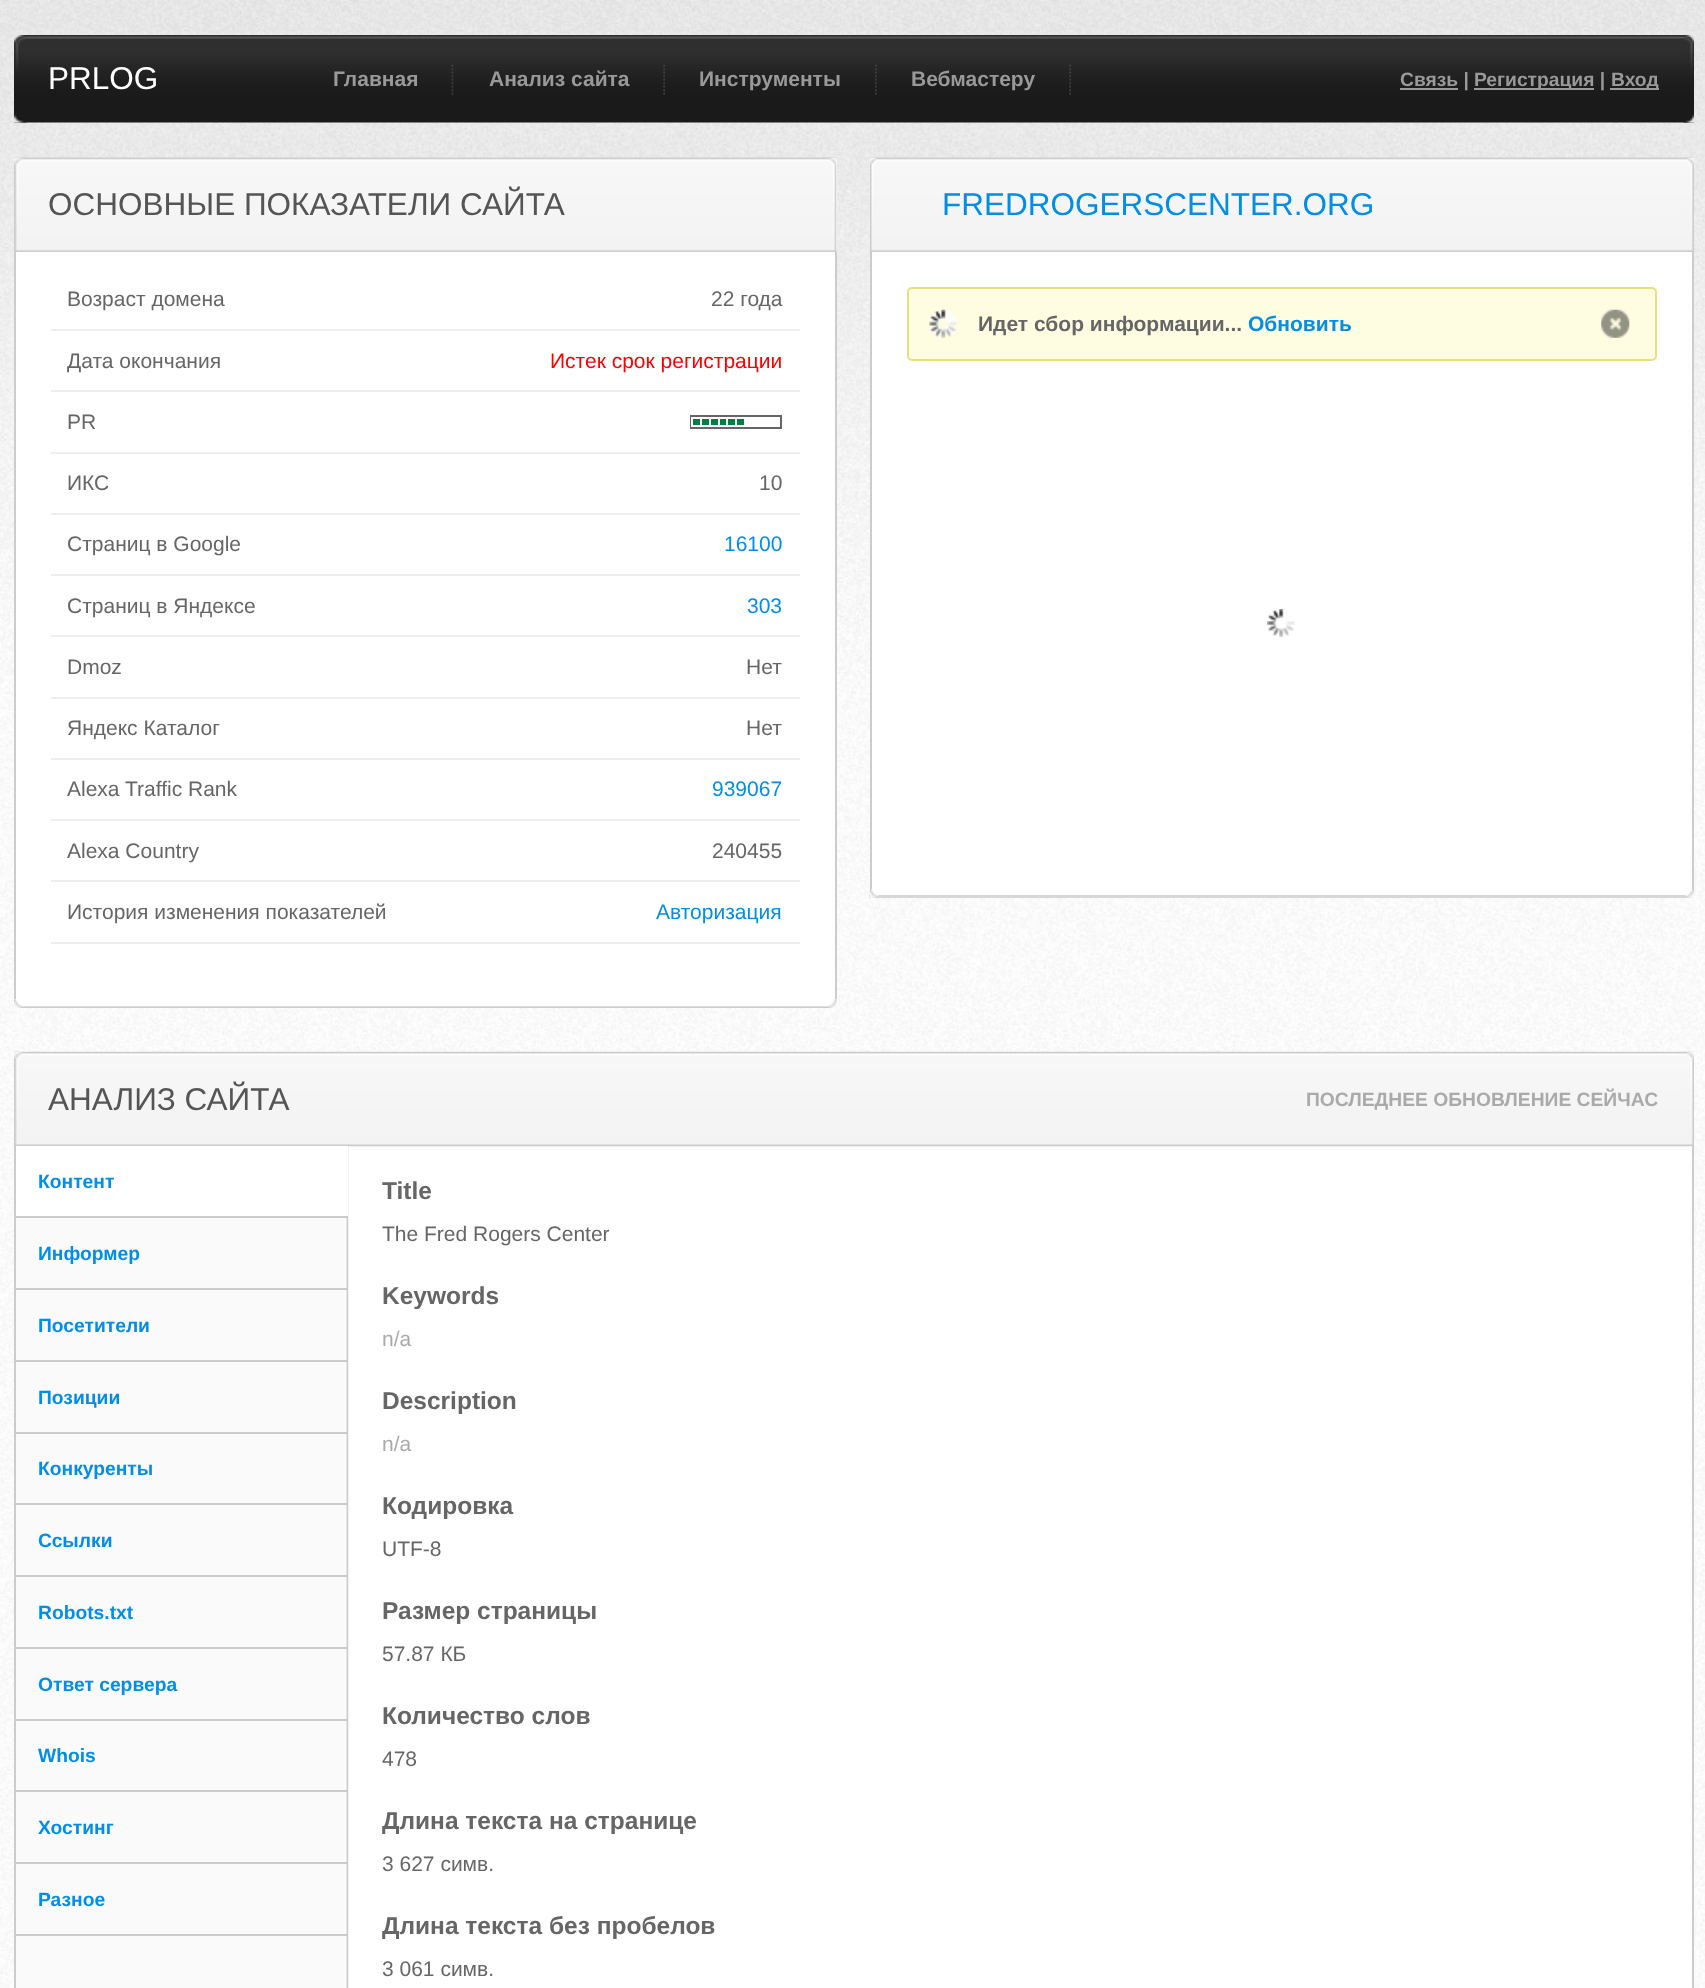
<?xml version="1.0" encoding="UTF-8"?>
<svg xmlns="http://www.w3.org/2000/svg" width="1705" height="1988">
    <rect width="100%" height="100%" fill="#FFFFFF"/>
    <image x="0" y="703" width="1705" height="1285" href="img_01.png"/>
    <image x="0" y="0" width="1705" height="704" href="img_02.png"/>
    <image x="14" y="35" width="1680" height="88" href="img_03.png"/>
    <image x="14" y="35" width="13" height="88" href="img_04.png"/>
    <text x="48" y="89" font-family="Liberation Sans" font-size="31.5" fill="#FFFFFF">PRLOG</text>
    <image x="451" y="64" width="3" height="31" href="img_05.png"/>
    <text x="333" y="86" font-family="Liberation Sans" font-size="21" font-weight="700" fill="#999999">Главная</text>
    <image x="663" y="64" width="2" height="31" href="img_06.png"/>
    <text x="489" y="86" font-family="Liberation Sans" font-size="21" font-weight="700" fill="#999999">Анализ сайта</text>
    <image x="875" y="64" width="2" height="31" href="img_07.png"/>
    <text x="699" y="86" font-family="Liberation Sans" font-size="21" font-weight="700" fill="#999999">Инструменты</text>
    <image x="1069" y="64" width="2" height="31" href="img_06.png"/>
    <text x="911" y="86" font-family="Liberation Sans" font-size="21" font-weight="700" fill="#999999">Вебмастеру</text>
    <rect x="1400" y="88" width="58" height="2" fill="#999999"/>
    <text x="1400" y="86" font-family="Liberation Sans" font-size="19.25" font-weight="700" fill="#999999">Связь |</text>
    <rect x="1474" y="88" width="120" height="2" fill="#999999"/>
    <text x="1474" y="86" font-family="Liberation Sans" font-size="19.25" font-weight="700" fill="#999999">Регистрация |</text>
    <rect x="1610" y="88" width="49" height="2" fill="#999999"/>
    <text x="1611" y="86" font-family="Liberation Sans" font-size="19.25" font-weight="700" fill="#999999">Вход</text>
    <image x="1683" y="35" width="11" height="88" href="img_08.png"/>
    <rect x="14" y="158" width="823" height="850" fill="#FFFFFF"/>
    <image x="22" y="1006" width="815" height="2" href="img_09.png"/>
    <image x="14" y="157" width="823" height="95" href="img_10.png"/>
    <image x="14" y="157" width="9" height="94" href="img_11.png"/>
    <text x="48" y="215" font-family="Liberation Sans" font-size="31.5" fill="#555555">ОСНОВНЫЕ ПОКАЗАТЕЛИ САЙТА</text>
    <image x="829" y="157" width="8" height="95" href="img_12.png"/>
    <rect x="835" y="252" width="2" height="747" fill="#CCCCCC"/>
    <rect x="14" y="252" width="2" height="747" fill="#CCCCCC"/>
    <rect x="51" y="329" width="749" height="2" fill="#EEEEEE"/>
    <text x="67" y="306" font-family="Liberation Sans" font-size="21" fill="#666666">Возраст домена</text>
    <text x="711" y="306" font-family="Liberation Sans" font-size="21" fill="#666666">22 года</text>
    <rect x="51" y="390" width="749" height="2" fill="#EEEEEE"/>
    <text x="67" y="368" font-family="Liberation Sans" font-size="21" fill="#666666">Дата окончания</text>
    <text x="550" y="368" font-family="Liberation Sans" font-size="21" fill="#FF0000">Истек срок регистрации</text>
    <rect x="51" y="452" width="749" height="2" fill="#EEEEEE"/>
    <text x="67" y="429" font-family="Liberation Sans" font-size="21" fill="#666666">PR</text>
    <rect x="691" y="416" width="90" height="12" fill="none" stroke="#666666" stroke-width="2"/>
    <rect x="693" y="419" width="7" height="6" fill="#008040"/>
    <rect x="691" y="417" width="9" height="2" fill="#FFFFFF"/>
    <rect x="691" y="425" width="9" height="2" fill="#FFFFFF"/>
    <rect x="691" y="417" width="1" height="10" fill="#FFFFFF"/>
    <rect x="702" y="419" width="7" height="6" fill="#008040"/>
    <rect x="711" y="419" width="7" height="6" fill="#008040"/>
    <rect x="720" y="417" width="6" height="10" fill="#008040"/>
    <rect x="718" y="417" width="8" height="2" fill="#FFFFFF"/>
    <rect x="718" y="425" width="8" height="2" fill="#FFFFFF"/>
    <rect x="728" y="419" width="7" height="6" fill="#008040"/>
    <rect x="737" y="419" width="7" height="6" fill="#008040"/>
    <rect x="51" y="513" width="749" height="2" fill="#EEEEEE"/>
    <text x="67" y="490" font-family="Liberation Sans" font-size="21" fill="#666666">ИКС</text>
    <text x="759" y="490" font-family="Liberation Sans" font-size="21" fill="#666666">10</text>
    <rect x="51" y="574" width="749" height="2" fill="#EEEEEE"/>
    <text x="67" y="551" font-family="Liberation Sans" font-size="21" fill="#666666">Страниц в Google</text>
    <text x="724" y="551" font-family="Liberation Sans" font-size="21" fill="#008EE8">16100</text>
    <rect x="51" y="635" width="749" height="2" fill="#EEEEEE"/>
    <text x="67" y="613" font-family="Liberation Sans" font-size="21" fill="#666666">Страниц в Яндексе</text>
    <text x="747" y="613" font-family="Liberation Sans" font-size="21" fill="#008EE8">303</text>
    <rect x="51" y="697" width="749" height="2" fill="#EEEEEE"/>
    <text x="67" y="674" font-family="Liberation Sans" font-size="21" fill="#666666">Dmoz</text>
    <text x="746" y="674" font-family="Liberation Sans" font-size="21" fill="#666666">Нет</text>
    <rect x="51" y="758" width="749" height="2" fill="#EEEEEE"/>
    <text x="67" y="735" font-family="Liberation Sans" font-size="21" fill="#666666">Яндекс Каталог</text>
    <text x="746" y="735" font-family="Liberation Sans" font-size="21" fill="#666666">Нет</text>
    <rect x="51" y="819" width="749" height="2" fill="#EEEEEE"/>
    <text x="67" y="796" font-family="Liberation Sans" font-size="21" fill="#666666">Alexa Traffic Rank</text>
    <text x="712" y="796" font-family="Liberation Sans" font-size="21" fill="#008EE8">939067</text>
    <rect x="51" y="880" width="749" height="2" fill="#EEEEEE"/>
    <text x="67" y="858" font-family="Liberation Sans" font-size="21" fill="#666666">Alexa Country</text>
    <text x="712" y="858" font-family="Liberation Sans" font-size="21" fill="#666666">240455</text>
    <rect x="51" y="942" width="749" height="2" fill="#EEEEEE"/>
    <text x="67" y="919" font-family="Liberation Sans" font-size="21" fill="#666666">История изменения показателей</text>
    <text x="656" y="919" font-family="Liberation Sans" font-size="21" fill="#008EE8">Авторизация</text>
    <image x="14" y="999" width="9" height="9" href="img_13.png"/>
    <image x="828" y="999" width="9" height="9" href="img_14.png"/>
    <rect x="872" y="252" width="820" height="643" fill="#FFFFFF"/>
    <rect x="869" y="895" width="825" height="3" fill="#D7D7D7"/>
    <image x="869" y="157" width="825" height="95" href="img_15.png"/>
    <image x="870" y="157" width="7" height="94" href="img_16.png"/>
    <text x="942" y="215" font-family="Liberation Sans" font-size="31.5" fill="#008EE8">FREDROGERSCENTER.ORG</text>
    <image x="1684" y="157" width="10" height="94" href="img_17.png"/>
    <rect x="1692" y="252" width="2" height="637" fill="#CCCCCC"/>
    <rect x="870" y="252" width="2" height="637" fill="#CCCCCC"/>
    <rect x="907" y="287" width="750" height="74" rx="5" fill="#FEFDE2"/>
    <image x="929" y="309" width="29" height="29" href="img_18.png"/>
    <rect x="908" y="288" width="748" height="72" rx="4" fill="none" stroke="#E5E181" stroke-width="2"/>
    <text x="978" y="331" font-family="Liberation Sans" font-size="21" font-weight="700" fill="#666666">Идет сбор информации...</text>
    <text x="1248" y="331" font-family="Liberation Sans" font-size="21" font-weight="700" fill="#008EE8">Обновить</text>
    <image x="1601" y="309" width="29" height="29" href="img_19.png"/>
    <image x="1267" y="609" width="28" height="28" href="img_20.png"/>
    <image x="869" y="889" width="10" height="9" href="img_21.png"/>
    <image x="1685" y="889" width="9" height="9" href="img_22.png"/>
    <rect x="348" y="1146" width="1344" height="842" fill="#FFFFFF"/>
    <image x="14" y="1051" width="1680" height="96" href="img_23.png"/>
    <image x="14" y="1052" width="9" height="93" href="img_24.png"/>
    <text x="48" y="1110" font-family="Liberation Sans" font-size="31.5" fill="#555555">АНАЛИЗ САЙТА</text>
    <text x="1306" y="1106" font-family="Liberation Sans" font-size="19.25" font-weight="700" fill="#AAAAAA">ПОСЛЕДНЕЕ ОБНОВЛЕНИЕ СЕЙЧАС</text>
    <image x="1686" y="1052" width="8" height="93" href="img_25.png"/>
    <image x="16" y="1146" width="333" height="842" href="img_26.png"/>
    <rect x="1692" y="1146" width="2" height="842" fill="#CCCCCC"/>
    <rect x="14" y="1146" width="2" height="842" fill="#CCCCCC"/>
    <rect x="16" y="1216" width="332" height="2" fill="#CCCCCC"/>
    <rect x="16" y="1146" width="332" height="70" fill="#FFFFFF"/>
    <text x="38" y="1188" font-family="Liberation Sans" font-size="19.25" font-weight="700" fill="#008EE8">Контент</text>
    <rect x="16" y="1288" width="332" height="2" fill="#CCCCCC"/>
    <text x="38" y="1260" font-family="Liberation Sans" font-size="19.25" font-weight="700" fill="#008EE8">Информер</text>
    <rect x="16" y="1360" width="332" height="2" fill="#CCCCCC"/>
    <text x="38" y="1332" font-family="Liberation Sans" font-size="19.25" font-weight="700" fill="#008EE8">Посетители</text>
    <rect x="16" y="1432" width="332" height="2" fill="#CCCCCC"/>
    <text x="38" y="1404" font-family="Liberation Sans" font-size="19.25" font-weight="700" fill="#008EE8">Позиции</text>
    <rect x="16" y="1503" width="332" height="2" fill="#CCCCCC"/>
    <text x="38" y="1475" font-family="Liberation Sans" font-size="19.25" font-weight="700" fill="#008EE8">Конкуренты</text>
    <rect x="16" y="1575" width="332" height="2" fill="#CCCCCC"/>
    <text x="38" y="1547" font-family="Liberation Sans" font-size="19.25" font-weight="700" fill="#008EE8">Ссылки</text>
    <rect x="16" y="1647" width="332" height="2" fill="#CCCCCC"/>
    <text x="38" y="1619" font-family="Liberation Sans" font-size="19.25" font-weight="700" fill="#008EE8">Robots.txt</text>
    <rect x="16" y="1719" width="332" height="2" fill="#CCCCCC"/>
    <text x="38" y="1691" font-family="Liberation Sans" font-size="19.25" font-weight="700" fill="#008EE8">Ответ сервера</text>
    <rect x="16" y="1790" width="332" height="2" fill="#CCCCCC"/>
    <text x="38" y="1762" font-family="Liberation Sans" font-size="19.25" font-weight="700" fill="#008EE8">Whois</text>
    <rect x="16" y="1862" width="332" height="2" fill="#CCCCCC"/>
    <text x="38" y="1834" font-family="Liberation Sans" font-size="19.25" font-weight="700" fill="#008EE8">Хостинг</text>
    <rect x="16" y="1934" width="332" height="2" fill="#CCCCCC"/>
    <text x="38" y="1906" font-family="Liberation Sans" font-size="19.25" font-weight="700" fill="#008EE8">Разное</text>
    <text x="382" y="1199" font-family="Liberation Sans" font-size="24.5" font-weight="700" fill="#666666">Title</text>
    <text x="382" y="1241" font-family="Liberation Sans" font-size="21" fill="#666666">The Fred Rogers Center</text>
    <text x="382" y="1304" font-family="Liberation Sans" font-size="24.5" font-weight="700" fill="#666666">Keywords</text>
    <text x="382" y="1346" font-family="Liberation Sans" font-size="21" fill="#AAAAAA">n/a</text>
    <text x="382" y="1409" font-family="Liberation Sans" font-size="24.5" font-weight="700" fill="#666666">Description</text>
    <text x="382" y="1451" font-family="Liberation Sans" font-size="21" fill="#AAAAAA">n/a</text>
    <text x="382" y="1514" font-family="Liberation Sans" font-size="24.5" font-weight="700" fill="#666666">Кодировка</text>
    <text x="382" y="1556" font-family="Liberation Sans" font-size="21" fill="#666666">UTF-8</text>
    <text x="382" y="1619" font-family="Liberation Sans" font-size="24.5" font-weight="700" fill="#666666">Размер страницы</text>
    <text x="382" y="1661" font-family="Liberation Sans" font-size="21" fill="#666666">57.87 КБ</text>
    <text x="382" y="1724" font-family="Liberation Sans" font-size="24.5" font-weight="700" fill="#666666">Количество слов</text>
    <text x="382" y="1766" font-family="Liberation Sans" font-size="21" fill="#666666">478</text>
    <text x="382" y="1829" font-family="Liberation Sans" font-size="24.5" font-weight="700" fill="#666666">Длина текста на странице</text>
    <text x="382" y="1871" font-family="Liberation Sans" font-size="21" fill="#666666">3 627 симв.</text>
    <text x="382" y="1934" font-family="Liberation Sans" font-size="24.5" font-weight="700" fill="#666666">Длина текста без пробелов</text>
    <text x="382" y="1976" font-family="Liberation Sans" font-size="21" fill="#666666">3 061 симв.</text>
</svg>
